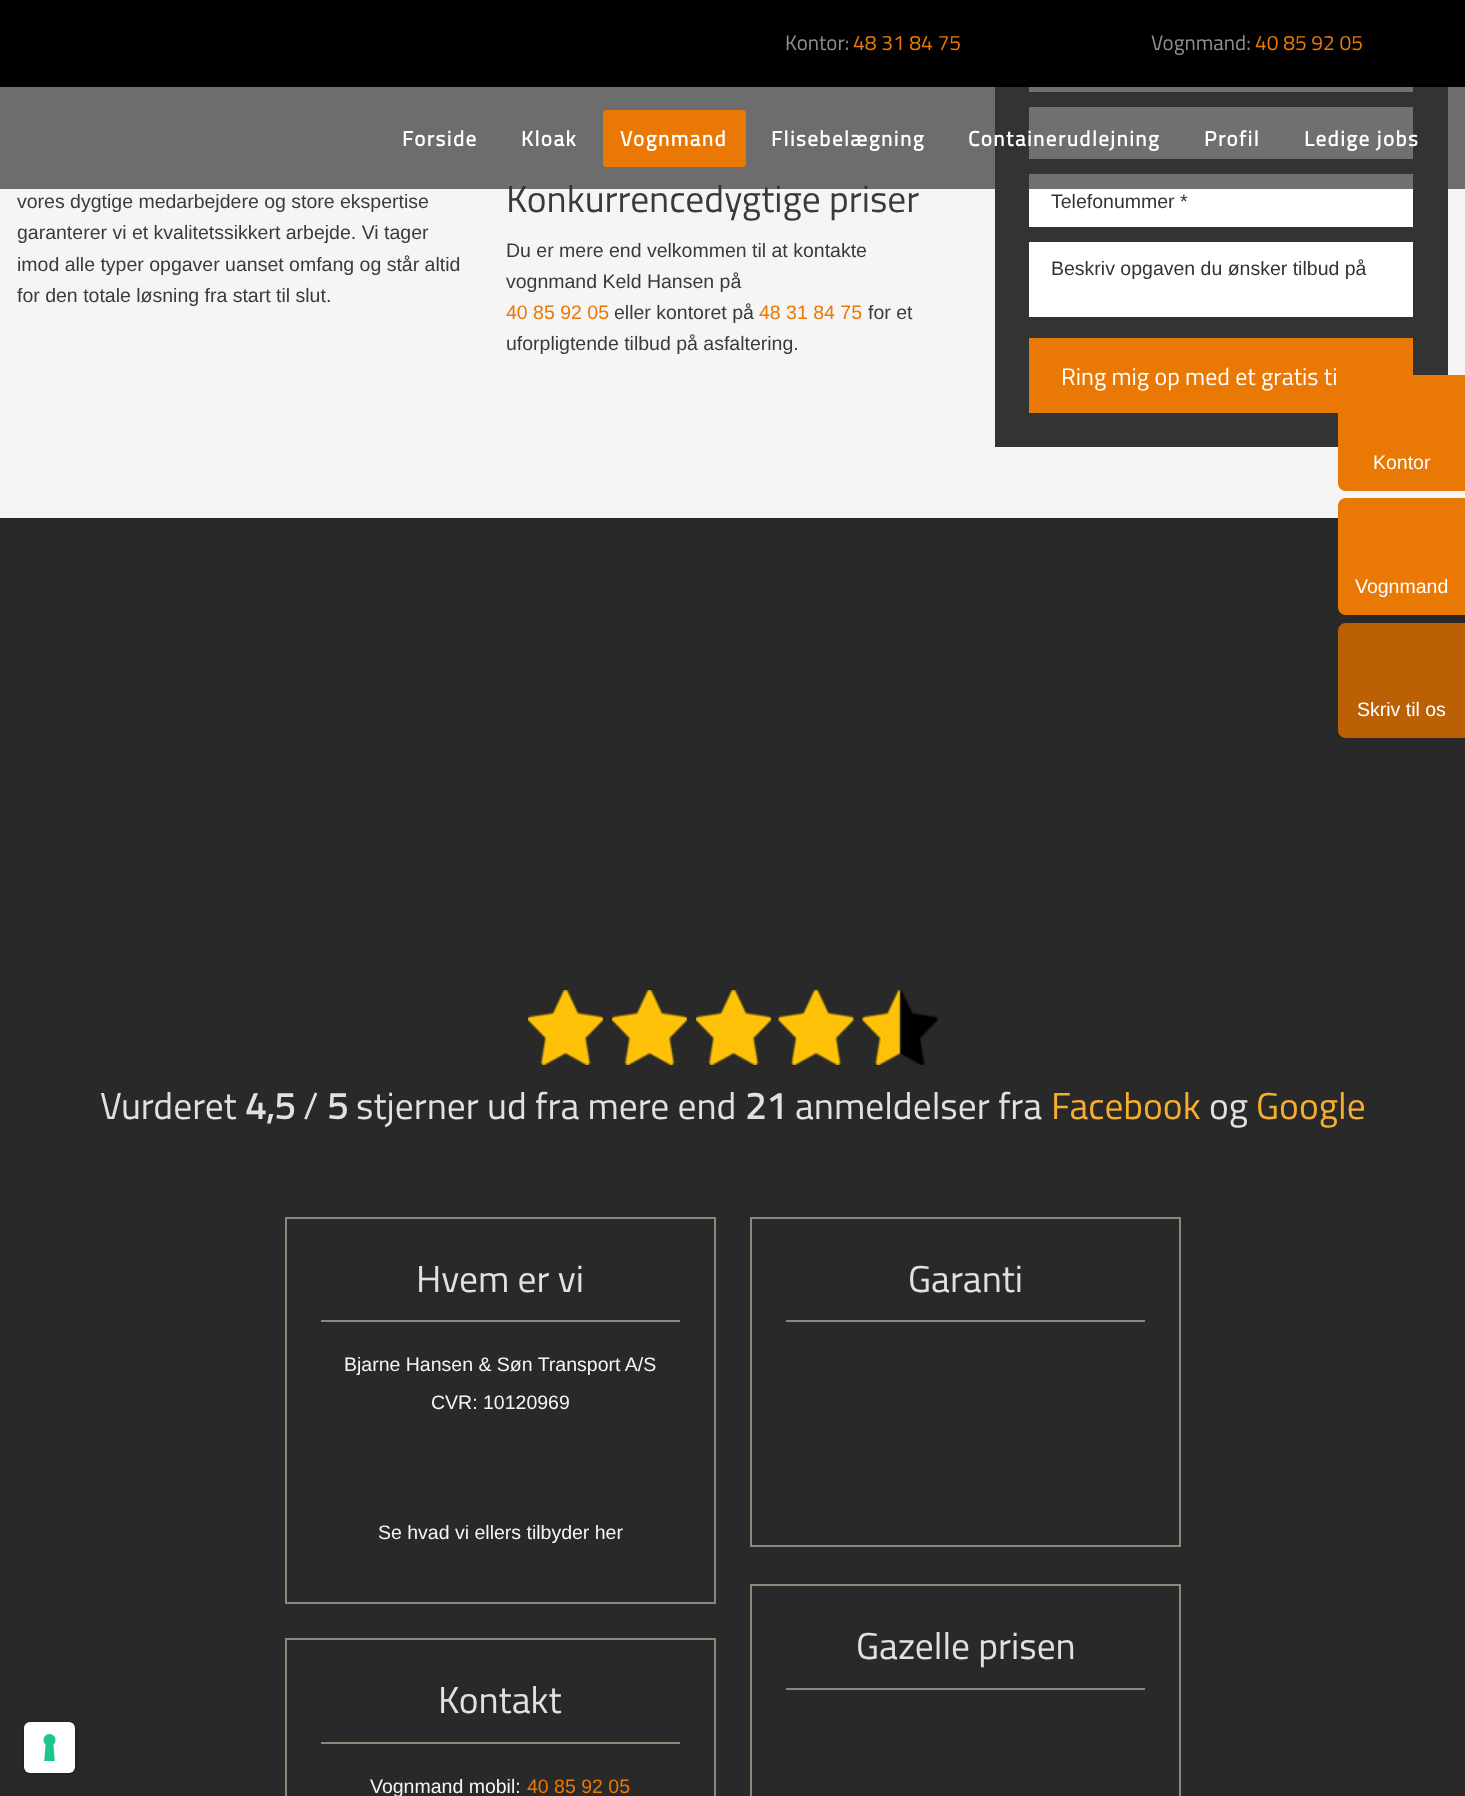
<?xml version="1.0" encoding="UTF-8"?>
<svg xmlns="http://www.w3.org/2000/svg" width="1465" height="1796">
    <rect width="100%" height="100%" fill="#292929"/>
    <rect x="0" y="0" width="1465" height="87" fill="#000000"/>
    <text x="785" y="50" font-family="Titillium Web" font-size="21" fill="#8F8F8F">Kontor:</text>
    <text x="853" y="50" font-family="Titillium Web" font-size="21" fill="#EA7805">48 31 84 75</text>
    <text x="1151" y="50" font-family="Titillium Web" font-size="21" fill="#8F8F8F">Vognmand:</text>
    <text x="1255" y="50" font-family="Titillium Web" font-size="21" fill="#EA7805">40 85 92 05</text>
    <rect x="0" y="87" width="1465" height="431" fill="#F5F5F5"/>
    <text x="506" y="212" font-family="Titillium Web" font-size="37.5" fill="#3A3A3A">Konkurrencedygtige priser</text>
    <rect x="995" y="87" width="453" height="360" fill="#333333"/>
    <rect x="1029" y="87" width="384" height="5" fill="#FFFFFF"/>
    <rect x="1029" y="107" width="384" height="52" fill="#FFFFFF"/>
    <rect x="1029" y="174" width="384" height="53" fill="#FFFFFF"/>
    <rect x="0" y="87" width="1465" height="102" fill="#333333" fill-opacity="0.7"/>
    <text x="402" y="146" font-family="Titillium Web" font-size="21" font-weight="700" letter-spacing="1.5" fill="#FFFFFF">Forside</text>
    <text x="521" y="146" font-family="Titillium Web" font-size="21" font-weight="700" letter-spacing="1.5" fill="#FFFFFF">Kloak</text>
    <rect x="603" y="110" width="143" height="57" rx="3" fill="#EA7805"/>
    <text x="620" y="146" font-family="Titillium Web" font-size="21" font-weight="700" letter-spacing="1.5" fill="#FFFFFF">Vognmand</text>
    <text x="771" y="146" font-family="Titillium Web" font-size="21" font-weight="700" letter-spacing="1.5" fill="#FFFFFF">Flisebelægning</text>
    <text x="968" y="146" font-family="Titillium Web" font-size="21" font-weight="700" letter-spacing="1.5" fill="#FFFFFF">Containerudlejning</text>
    <text x="1204" y="146" font-family="Titillium Web" font-size="21" font-weight="700" letter-spacing="1.5" fill="#FFFFFF">Profil</text>
    <text x="1304" y="146" font-family="Titillium Web" font-size="21" font-weight="700" letter-spacing="1.5" fill="#FFFFFF">Ledige jobs</text>
    <text font-family="Liberation Sans" font-size="19.5" fill="#3A3A3A">
        <tspan x="17" y="208">vores dygtige medarbejdere og store ekspertise</tspan>
        <tspan x="17" y="239">garanterer vi et kvalitetssikkert arbejde. Vi tager</tspan>
        <tspan x="17" y="271">imod alle typer opgaver uanset omfang og står altid</tspan>
        <tspan x="17" y="302">for den totale løsning fra start til slut.</tspan>
    </text>
    <text font-family="Liberation Sans" font-size="19.5" fill="#3A3A3A">
        <tspan x="506" y="257">Du er mere end velkommen til at kontakte</tspan>
        <tspan x="506" y="288">vognmand Keld Hansen på</tspan>
    </text>
    <text x="506" y="319" font-family="Liberation Sans" font-size="19.5" fill="#EA7805">40 85 92 05</text>
    <text x="614" y="319" font-family="Liberation Sans" font-size="19.5" fill="#3A3A3A">eller kontoret på</text>
    <text x="759" y="319" font-family="Liberation Sans" font-size="19.5" fill="#EA7805">48 31 84 75</text>
    <text x="868" y="319" font-family="Liberation Sans" font-size="19.5" fill="#3A3A3A">for et</text>
    <text x="506" y="350" font-family="Liberation Sans" font-size="19.5" fill="#3A3A3A">uforpligtende tilbud på asfaltering.</text>
    <text x="1051" y="208" font-family="Liberation Sans" font-size="19.5" fill="#333333">Telefonummer *</text>
    <rect x="1029" y="242" width="384" height="75" fill="#FFFFFF"/>
    <text x="1051" y="275" font-family="Liberation Sans" font-size="19.5" fill="#333333">Beskriv opgaven du ønsker tilbud på</text>
    <rect x="1029" y="338" width="384" height="75" fill="#EA7805"/>
    <text x="1061" y="385" font-family="Titillium Web" font-size="24" fill="#FFFFFF">Ring mig op med et gratis ti</text>
    <path d="M 1346 375 H 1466 V 491 H 1346 C 1341.5 491 1338 487.5 1338 483 V 383 C 1338 378.5 1341.5 375 1346 375 Z" fill="#EA7805"/>
    <text x="1373" y="469" font-family="Liberation Sans" font-size="19.5" fill="#FFFFFF">Kontor</text>
    <path d="M 1346 498 H 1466 V 615 H 1346 C 1341.5 615 1338 611.5 1338 607 V 506 C 1338 501.5 1341.5 498 1346 498 Z" fill="#EA7805"/>
    <text x="1355" y="593" font-family="Liberation Sans" font-size="19.5" fill="#FFFFFF">Vognmand</text>
    <path d="M 1346 623 H 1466 V 738 H 1346 C 1341.5 738 1338 734.5 1338 730 V 631 C 1338 626.5 1341.5 623 1346 623 Z" fill="#BB6004"/>
    <text x="1357" y="716" font-family="Liberation Sans" font-size="19.5" fill="#FFFFFF">Skriv til os</text>
    <image x="528" y="990" width="75" height="75" href="img_01.png"/>
    <image x="612" y="990" width="75" height="75" href="img_02.png"/>
    <image x="696" y="990" width="75" height="75" href="img_03.png"/>
    <image x="778" y="990" width="76" height="75" href="img_04.png"/>
    <image x="862" y="990" width="76" height="75" href="img_05.png"/>
    <text x="100" y="1119" font-family="Titillium Web" font-size="37.5" fill="#E1E1E1">Vurderet</text>
    <text x="245" y="1119" font-family="Titillium Web" font-size="37.5" font-weight="700" fill="#E1E1E1">4,5</text>
    <text x="303" y="1119" font-family="Titillium Web" font-size="37.5" fill="#E1E1E1">/</text>
    <text x="327" y="1119" font-family="Titillium Web" font-size="37.5" font-weight="700" fill="#E1E1E1">5</text>
    <text x="356" y="1119" font-family="Titillium Web" font-size="37.5" fill="#E1E1E1">stjerner ud fra mere end</text>
    <text x="745" y="1119" font-family="Titillium Web" font-size="37.5" font-weight="700" fill="#E1E1E1">21</text>
    <text x="795" y="1119" font-family="Titillium Web" font-size="37.5" fill="#E1E1E1">anmeldelser fra</text>
    <text x="1051" y="1119" font-family="Titillium Web" font-size="37.5" fill="#F6AE2D">Facebook</text>
    <text x="1209" y="1119" font-family="Titillium Web" font-size="37.5" fill="#E1E1E1">og</text>
    <text x="1256" y="1119" font-family="Titillium Web" font-size="37.5" fill="#F6AE2D">Google</text>
    <rect x="286" y="1218" width="429" height="385" fill="none" stroke="#8D8679" stroke-width="2"/>
    <rect x="321" y="1320" width="359" height="2" fill="#8D8679"/>
    <text x="416" y="1292" font-family="Titillium Web" font-size="37.5" fill="#E1E1E1">Hvem er vi</text>
    <text x="344" y="1371" font-family="Liberation Sans" font-size="19.5" fill="#F5F5F5">Bjarne Hansen &amp; Søn Transport A/S</text>
    <text x="431" y="1409" font-family="Liberation Sans" font-size="19.5" fill="#F5F5F5">CVR: 10120969</text>
    <text x="378" y="1539" font-family="Liberation Sans" font-size="19.5" fill="#F5F5F5">Se hvad vi ellers tilbyder her</text>
    <rect x="286" y="1639" width="429" height="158" fill="none" stroke="#8D8679" stroke-width="2"/>
    <rect x="321" y="1742" width="359" height="2" fill="#8D8679"/>
    <text x="438" y="1713" font-family="Titillium Web" font-size="37.5" fill="#E1E1E1">Kontakt</text>
    <text x="370" y="1793" font-family="Liberation Sans" font-size="19.5" fill="#F5F5F5">Vognmand mobil:</text>
    <text x="527" y="1793" font-family="Liberation Sans" font-size="19.5" fill="#EA7805">40 85 92 05</text>
    <rect x="751" y="1218" width="429" height="328" fill="none" stroke="#8D8679" stroke-width="2"/>
    <rect x="786" y="1320" width="359" height="2" fill="#8D8679"/>
    <text x="908" y="1292" font-family="Titillium Web" font-size="37.5" fill="#E1E1E1">Garanti</text>
    <rect x="751" y="1585" width="429" height="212" fill="none" stroke="#8D8679" stroke-width="2"/>
    <rect x="786" y="1688" width="359" height="2" fill="#8D8679"/>
    <text x="856" y="1659" font-family="Titillium Web" font-size="37.5" fill="#E1E1E1">Gazelle prisen</text>
    <rect x="24" y="1722" width="52" height="52" rx="7" fill="none" stroke="#232323" stroke-width="2"/>
    <rect x="24" y="1722" width="51" height="51" rx="6" fill="#FFFFFF"/>
    <image x="43" y="1734" width="13" height="27" href="img_06.png"/>
</svg>
